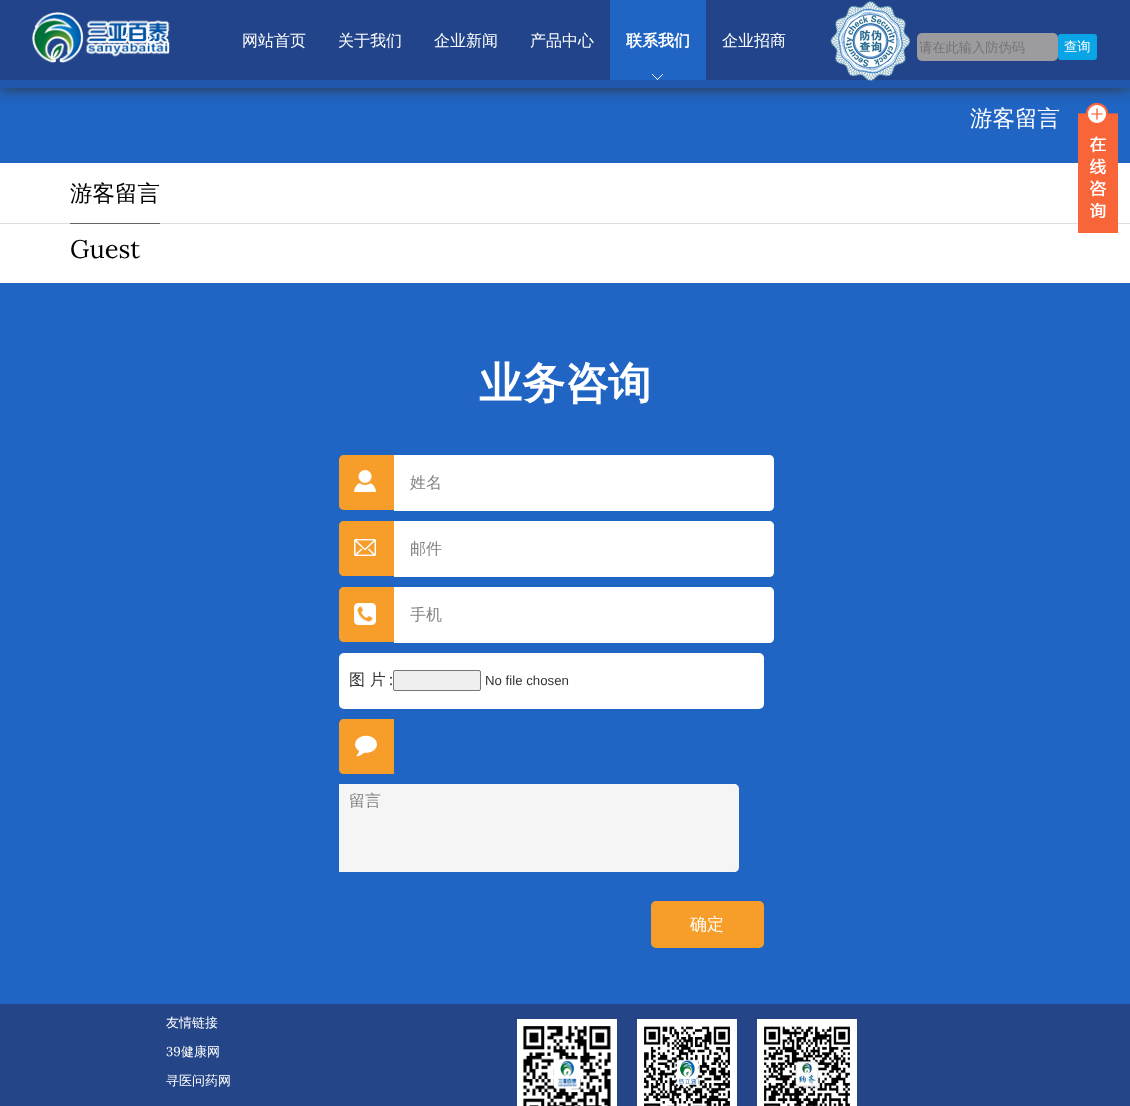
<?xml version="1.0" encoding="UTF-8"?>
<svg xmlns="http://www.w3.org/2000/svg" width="1130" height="1106">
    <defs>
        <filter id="blur1" x="-50%" y="-200%" width="200%" height="500%"><feGaussianBlur stdDeviation="7.5"/></filter>
    </defs>
    <rect width="100%" height="100%" fill="#2065C4"/>
    <image x="0" y="163" width="1130" height="120" href="img_05.png"/>
    <image x="1078" y="102" width="40" height="131" href="img_04.png"/>
    <rect x="0" y="0" width="1130" height="88" fill="#333333" filter="url(#blur1)"/>
    <rect x="0" y="0" width="1130" height="80" fill="#21448A"/>
    <rect x="0" y="80" width="1130" height="8" fill="#2058AD"/>
    <image x="32" y="12" width="138" height="51" href="img_01.png"/>
    <text x="242" y="46" font-family="WenQuanYi Zen Hei" font-size="16" font-weight="500" fill="#FFFFFF">网站首页</text>
    <text x="338" y="46" font-family="WenQuanYi Zen Hei" font-size="16" font-weight="500" fill="#FFFFFF">关于我们</text>
    <text x="434" y="46" font-family="WenQuanYi Zen Hei" font-size="16" font-weight="500" fill="#FFFFFF">企业新闻</text>
    <text x="530" y="46" font-family="WenQuanYi Zen Hei" font-size="16" font-weight="500" fill="#FFFFFF">产品中心</text>
    <rect x="610" y="0" width="96" height="80" fill="#2065C4"/>
    <image x="652" y="74" width="11" height="6" href="img_02.png"/>
    <text x="626" y="46" font-family="WenQuanYi Zen Hei" font-size="16" font-weight="700" fill="#FFFFFF">联系我们</text>
    <text x="722" y="46" font-family="WenQuanYi Zen Hei" font-size="16" font-weight="500" fill="#FFFFFF">企业招商</text>
    <image x="830" y="1" width="80" height="80" href="img_03.png"/>
    <rect x="917" y="33" width="141" height="28" rx="5" fill="#9C9C9F"/>
    <text x="919" y="52" font-family="WenQuanYi Zen Hei" font-size="13.25" font-weight="500" fill="#747575">请在此输入防伪码</text>
    <rect x="1058" y="34" width="39" height="26" rx="3" fill="#0AA5E7"/>
    <text x="1064" y="51" font-family="WenQuanYi Zen Hei" font-size="13.25" font-weight="500" fill="#FFFFFF">查询</text>
    <text x="970" y="126" font-family="WenQuanYi Zen Hei" font-size="22.5" font-weight="500" fill="#FFFFFF">游客留言</text>
    <rect x="70" y="223" width="90" height="1" fill="#666666"/>
    <text x="70" y="201" font-family="WenQuanYi Zen Hei" font-size="22.5" font-weight="500" fill="#000000">游客留言</text>
    <text x="70" y="258" font-family="Lora" font-size="25.5" fill="#000000">Guest</text>
    <text x="479" y="398" font-family="WenQuanYi Zen Hei" font-size="43" font-weight="700" fill="#FFFFFF">业务咨询</text>
    <path d="M 344 455 H 394 V 510 H 344 C 341 510 339 508 339 505 V 460 C 339 457 341 455 344 455 Z" fill="#F79D29"/>
    <image x="354" y="470" width="22" height="22" href="img_06.png"/>
    <path d="M 394 455 H 769 C 772 455 774 457 774 460 V 506 C 774 509 772 511 769 511 H 394 Z" fill="#FFFFFF"/>
    <text x="410" y="488" font-family="WenQuanYi Zen Hei" font-size="16" font-weight="500" fill="#858282">姓名</text>
    <path d="M 344 521 H 394 V 576 H 344 C 341 576 339 574 339 571 V 526 C 339 523 341 521 344 521 Z" fill="#F79D29"/>
    <image x="354" y="539" width="22" height="17" href="img_07.png"/>
    <path d="M 394 521 H 769 C 772 521 774 523 774 526 V 572 C 774 575 772 577 769 577 H 394 Z" fill="#FFFFFF"/>
    <text x="410" y="554" font-family="WenQuanYi Zen Hei" font-size="16" font-weight="500" fill="#858282">邮件</text>
    <path d="M 344 587 H 394 V 642 H 344 C 341 642 339 640 339 637 V 592 C 339 589 341 587 344 587 Z" fill="#F79D29"/>
    <image x="354" y="603" width="22" height="22" href="img_08.png"/>
    <path d="M 394 587 H 769 C 772 587 774 589 774 592 V 638 C 774 641 772 643 769 643 H 394 Z" fill="#FFFFFF"/>
    <text x="410" y="620" font-family="WenQuanYi Zen Hei" font-size="16" font-weight="500" fill="#858282">手机</text>
    <rect x="339" y="653" width="425" height="56" rx="5" fill="#FFFFFF"/>
    <text x="349" y="685" font-family="WenQuanYi Zen Hei" font-size="16" font-weight="500" fill="#333333">图 片</text>
    <text x="389" y="685" font-family="Lora" font-size="16" fill="#333333">:</text>
    <rect x="393.5" y="670.5" width="87" height="20" rx="1.5" fill="#EFEFEF" stroke="#767676"/>
    <text x="485" y="685" font-family="Liberation Sans" font-size="13.25" fill="#333333">No file chosen</text>
    <path d="M 344 719 H 394 V 774 H 344 C 341 774 339 772 339 769 V 724 C 339 721 341 719 344 719 Z" fill="#F79D29"/>
    <image x="355" y="735" width="22" height="22" href="img_09.png"/>
    <path d="M 339 784 H 734 C 737 784 739 786 739 789 V 867 C 739 870 737 872 734 872 H 339 Z" fill="#F5F5F5"/>
    <text x="349" y="806" font-family="WenQuanYi Zen Hei" font-size="16" font-weight="500" fill="#858282">留言</text>
    <rect x="652" y="902" width="111" height="45" rx="4" fill="#F79D29" stroke="#F79D29" stroke-width="2"/>
    <text x="690" y="930" font-family="WenQuanYi Zen Hei" font-size="17" font-weight="500" fill="#FFFFFF">确定</text>
    <rect x="0" y="1004" width="1130" height="102" fill="#244588"/>
    <text x="166" y="1027" font-family="WenQuanYi Zen Hei" font-size="13" font-weight="500" fill="#FFFFFF">友情链接</text>
    <text x="166" y="1056" font-family="Lora" font-size="13" fill="#FFFFFF">39</text>
    <text x="181" y="1056" font-family="WenQuanYi Zen Hei" font-size="13" font-weight="500" fill="#FFFFFF">健康网</text>
    <text x="166" y="1085" font-family="WenQuanYi Zen Hei" font-size="13" font-weight="500" fill="#FFFFFF">寻医问药网</text>
    <image x="517" y="1019" width="100" height="87" href="img_10.png"/>
    <image x="637" y="1019" width="100" height="87" href="img_11.png"/>
    <image x="757" y="1019" width="100" height="87" href="img_12.png"/>
</svg>
